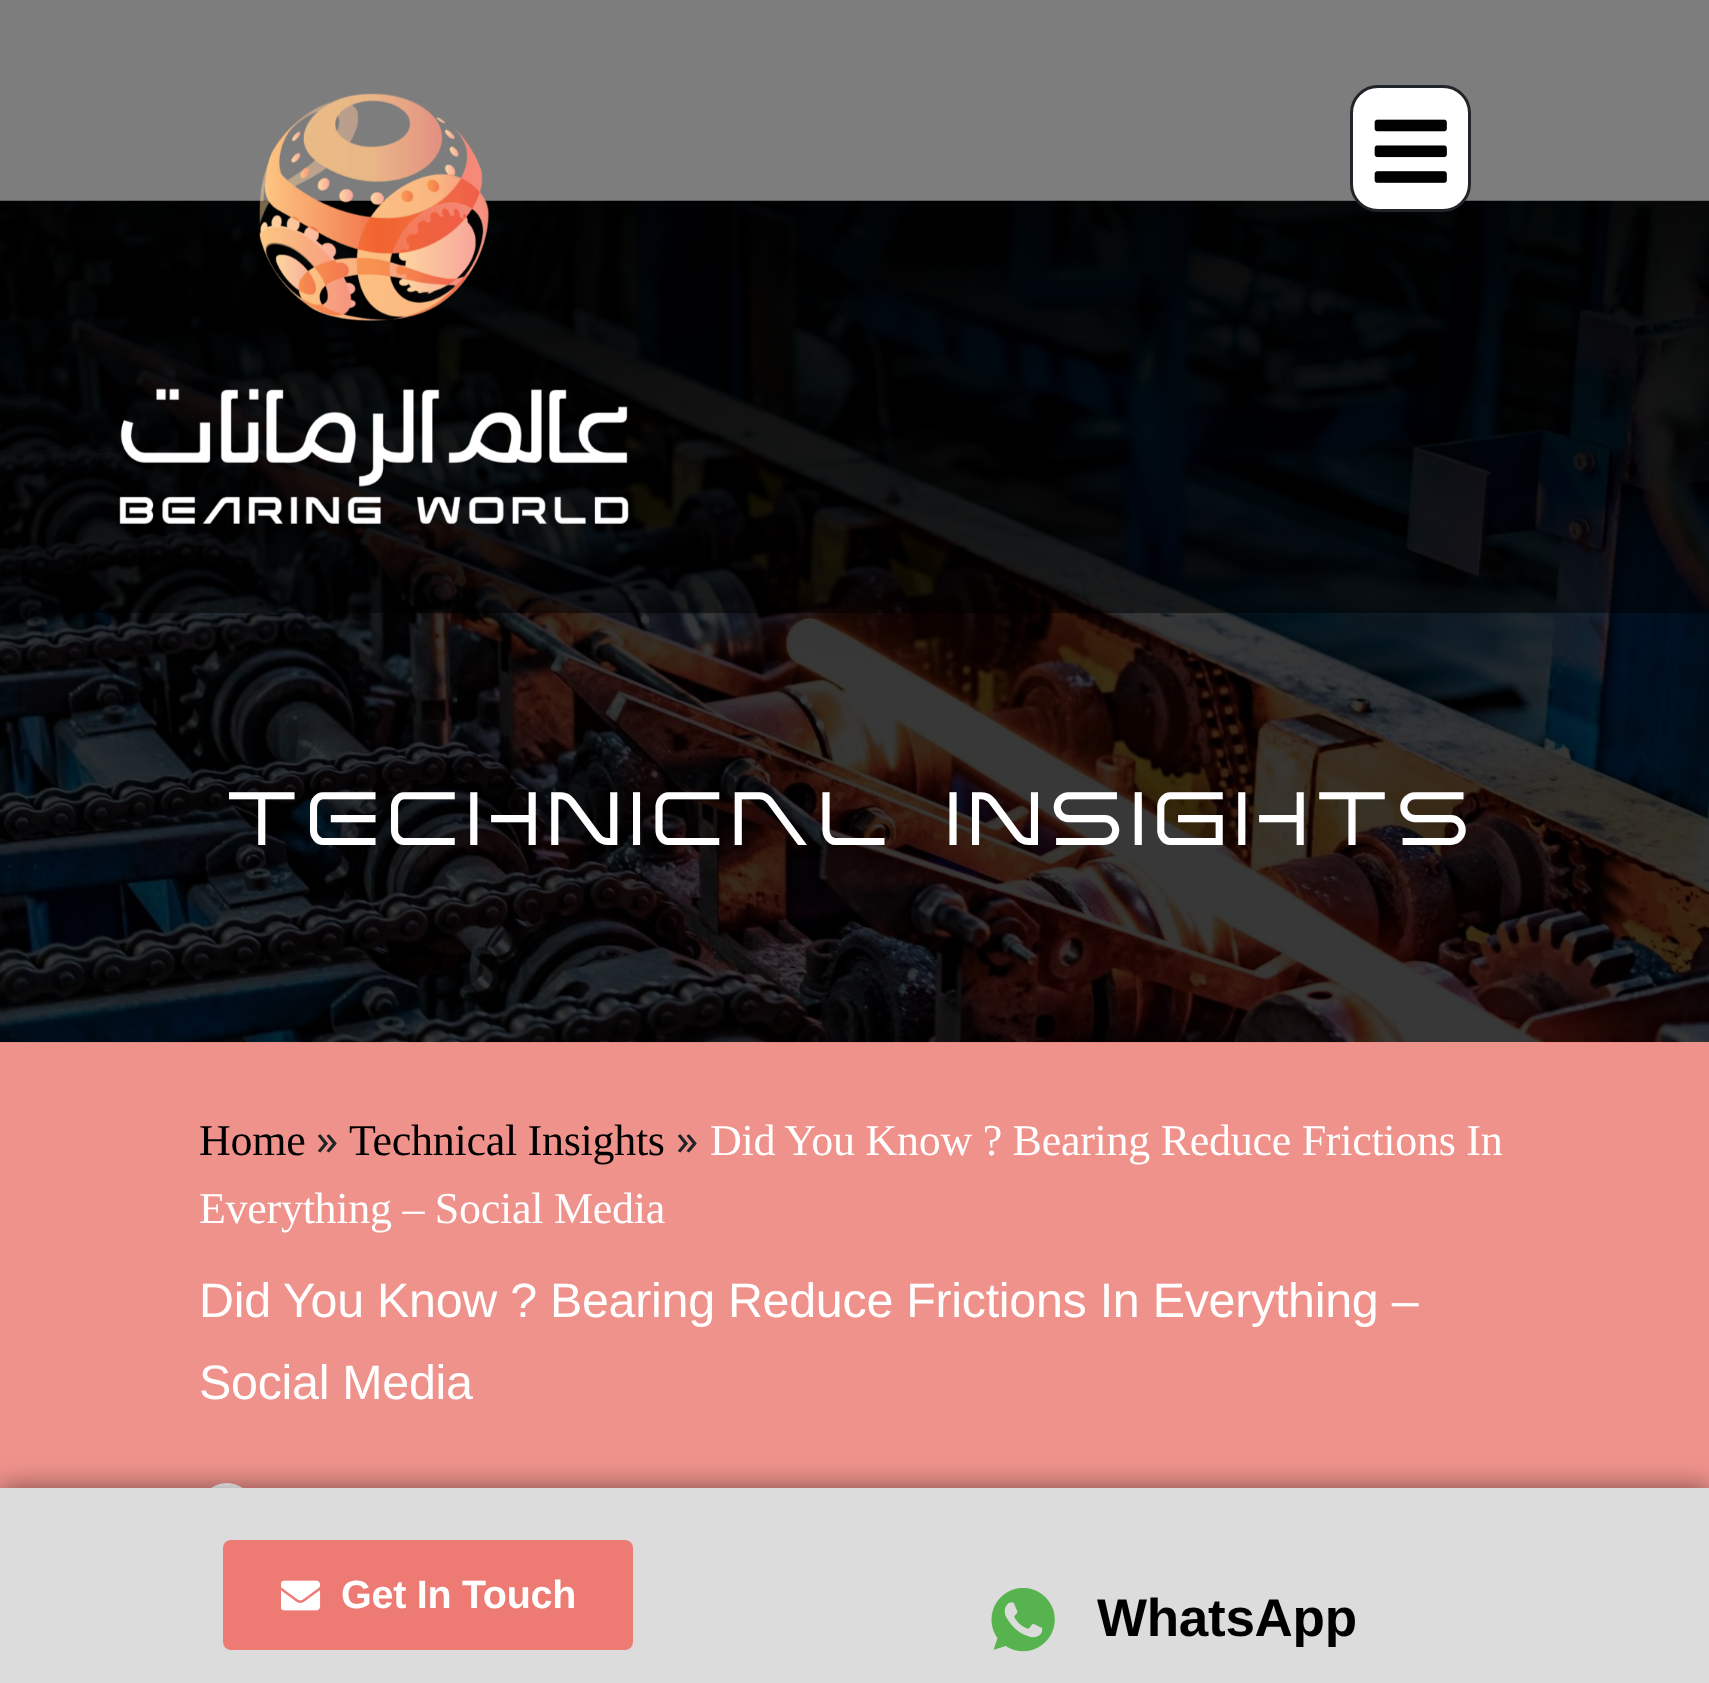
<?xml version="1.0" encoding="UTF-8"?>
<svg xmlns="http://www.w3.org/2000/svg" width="1709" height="1683">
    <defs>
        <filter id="blur1" x="-50%" y="-200%" width="200%" height="500%"><feGaussianBlur stdDeviation="14"/></filter>
    </defs>
    <rect width="100%" height="100%" fill="#FFFFFF"/>
    <image x="0" y="200" width="1709" height="843" href="img_03.png"/>
    <rect x="0" y="0" width="1709" height="613" fill="#000000" fill-opacity="0.51"/>
    <image x="119" y="93" width="510" height="431" href="img_01.png"/>
    <rect x="1351.5" y="86.5" width="118" height="124" rx="26.5" fill="#FFFFFF" stroke="#212529" stroke-width="3"/>
    <image x="1374" y="119" width="73" height="64" href="img_02.png"/>
    <text x="229" y="845" font-family="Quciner" font-size="88" letter-spacing="-0.28" fill="#FFFFFF">TECHNICAL INSIGHTS</text>
    <rect x="0" y="1042" width="1709" height="446" fill="#ED7A73" fill-opacity="0.82"/>
    <text x="199" y="1155" font-family="Liberation Serif" font-size="44" letter-spacing="-0.28" fill="#000000">Home</text>
    <text x="316" y="1155" font-family="Noto Sans" font-size="44" letter-spacing="-0.28" fill="#212529">»</text>
    <text x="349" y="1155" font-family="Liberation Serif" font-size="44" letter-spacing="-0.28" fill="#000000">Technical Insights</text>
    <text x="676" y="1155" font-family="Noto Sans" font-size="44" letter-spacing="-0.28" fill="#212529">»</text>
    <text x="710" y="1155" font-family="Liberation Serif" font-size="44" letter-spacing="-0.28" fill="#FFFFFF">Did You Know ? Bearing Reduce Frictions In</text>
    <text x="199" y="1223" font-family="Liberation Serif" font-size="44" letter-spacing="-0.28" fill="#FFFFFF">Everything – Social Media</text>
    <text font-family="Liberation Sans" font-size="48.4" letter-spacing="-0.28" fill="#FFFFFF">
        <tspan x="199" y="1317">Did You Know ? Bearing Reduce Frictions In Everything –</tspan>
        <tspan x="199" y="1399">Social Media</tspan>
    </text>
    <image x="211" y="1483" width="32" height="5" href="img_04.png"/>
    <rect x="0" y="1488" width="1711" height="195" fill="#000000" fill-opacity="0.5" filter="url(#blur1)"/>
    <rect x="0" y="1488" width="1709" height="195" fill="#DCDCDC"/>
    <rect x="223" y="1540" width="410" height="110" rx="8" fill="#ED7A73"/>
    <image x="281" y="1580" width="40" height="31" href="img_05.png"/>
    <text x="341" y="1608" font-family="Liberation Sans" font-size="39.5" font-weight="700" letter-spacing="-0.28" fill="#FFFFFF">Get In Touch</text>
    <image x="991" y="1588" width="64" height="64" href="img_06.png"/>
    <text x="1097" y="1636" font-family="Liberation Sans" font-size="53" font-weight="700" letter-spacing="-0.28" fill="#000000">WhatsApp</text>
</svg>
